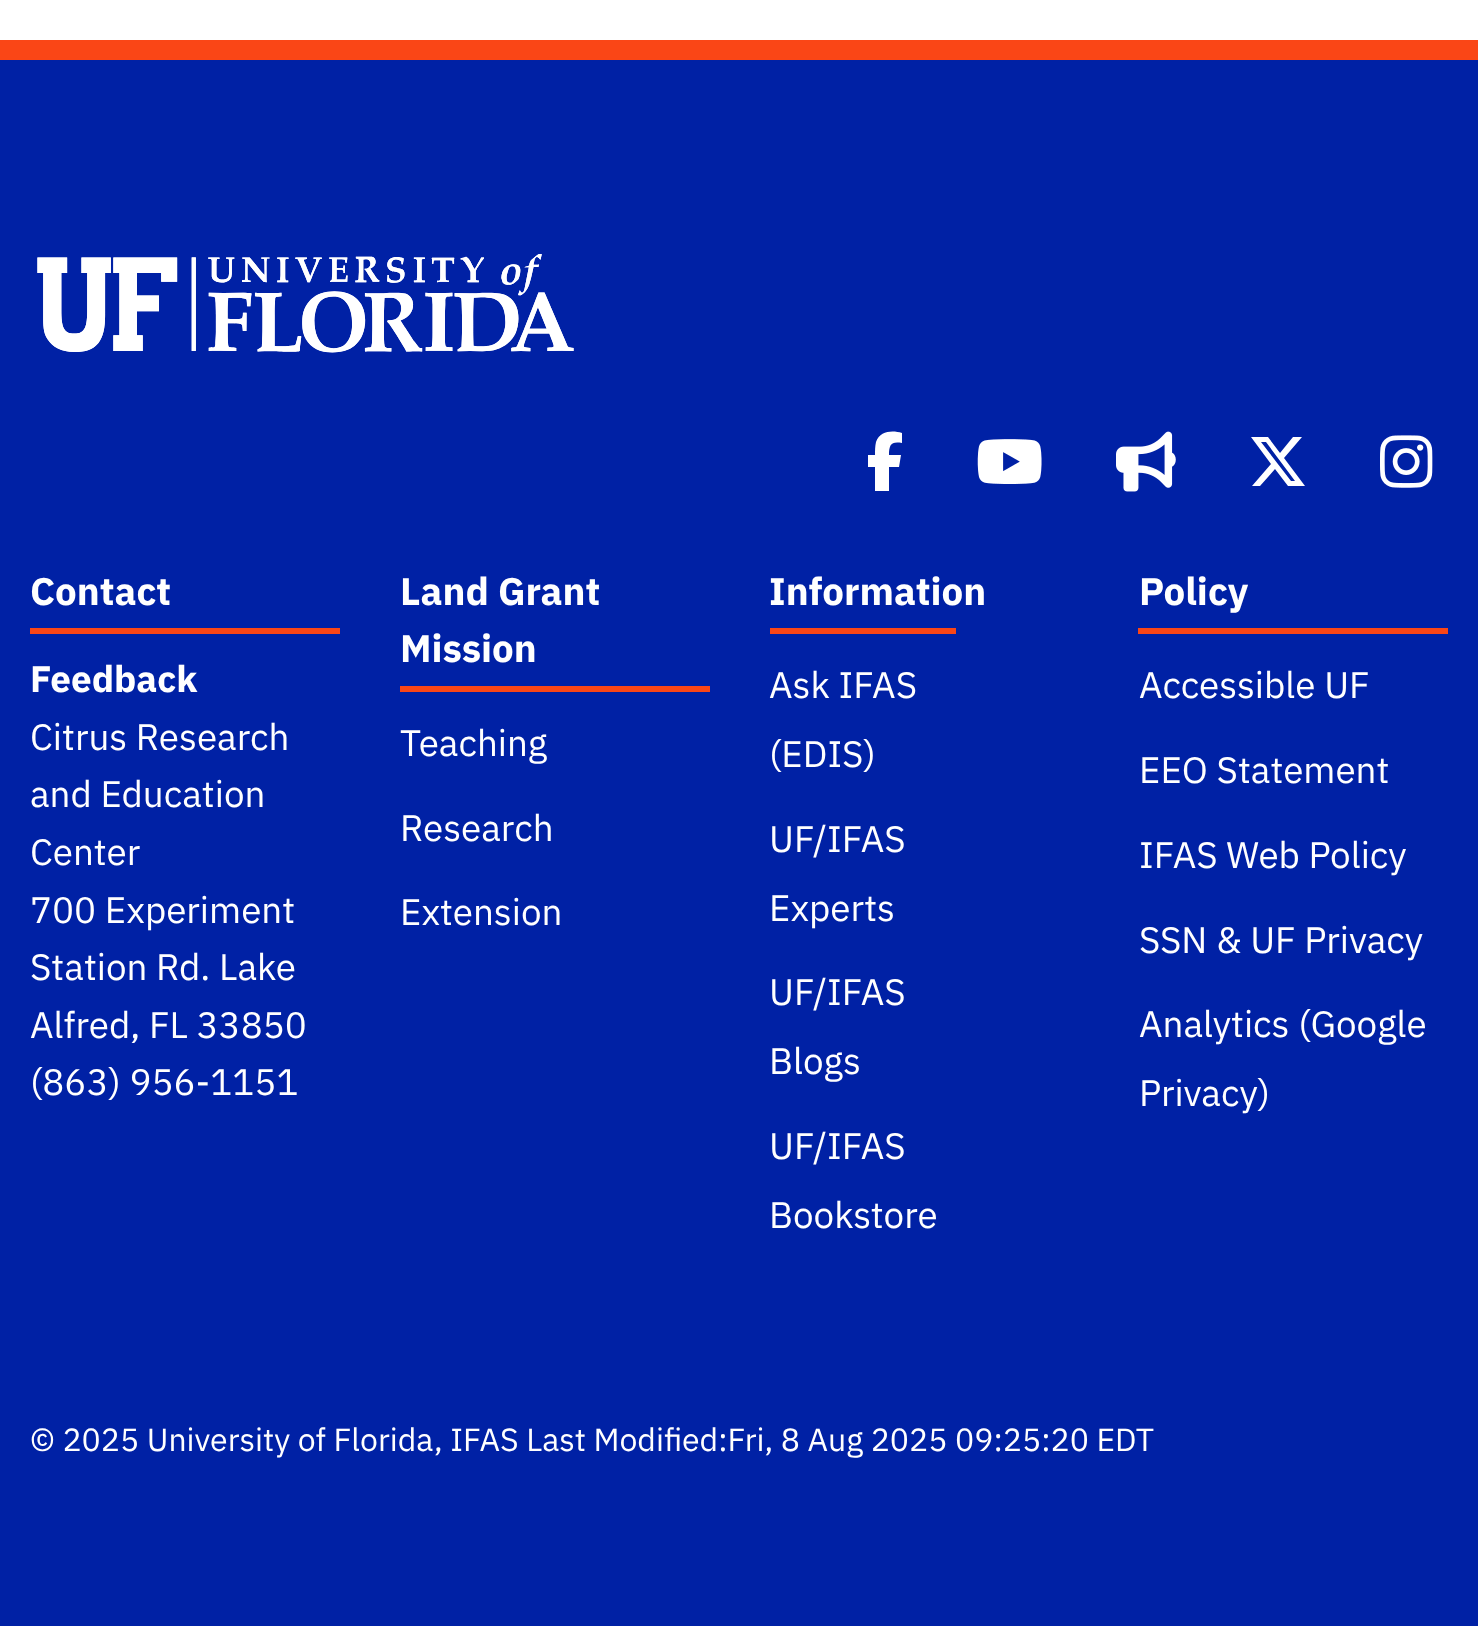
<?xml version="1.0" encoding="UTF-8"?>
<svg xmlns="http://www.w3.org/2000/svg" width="1478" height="1626">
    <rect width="100%" height="100%" fill="#FFFFFF"/>
    <rect x="0" y="60" width="1478" height="1566" fill="#0021A5"/>
    <rect x="0" y="40" width="1478" height="20" fill="#FA4616"/>
    <image x="37" y="254" width="537" height="99" href="img_01.png"/>
    <path d="M 875 467 V 491 V 467 V 491 H 889 V 467 H 899 L 901 455 H 889 C 889 445 891 441 902 443 V 433 C 892 430 880 431 876 442 C 875 446 875 451 875 455 H 868 V 467 Z" fill="#FFFFFF"/>
    <image x="977" y="439" width="65" height="45" href="img_02.png"/>
    <image x="1116" y="431" width="60" height="61" href="img_03.png"/>
    <path d="M 1293 437 H 1302 H 1293 H 1302 L 1284 458 L 1305 486 H 1288 L 1275 469 L 1260 486 H 1252 L 1271 464 L 1251 437 H 1268 L 1280 453 Z M 1291 481 H 1295 H 1291 H 1295 L 1266 442 H 1261 Z" fill="#FFFFFF"/>
    <image x="1380" y="435" width="53" height="53" href="img_04.png"/>
    <rect x="30" y="628" width="310" height="6" fill="#FA4616"/>
    <text x="30" y="605" font-family="IBM Plex Sans" font-size="38.5" font-weight="700" fill="#FFFFFF">Contact</text>
    <text x="30" y="692" font-family="IBM Plex Sans" font-size="36.75" font-weight="700" fill="#FFFFFF">Feedback</text>
    <text font-family="IBM Plex Sans" font-size="36.75" fill="#FFFFFF">
        <tspan x="30" y="750">Citrus Research</tspan>
        <tspan x="30" y="807">and Education</tspan>
        <tspan x="30" y="865">Center</tspan>
        <tspan x="30" y="923">700 Experiment</tspan>
        <tspan x="30" y="980">Station Rd. Lake</tspan>
        <tspan x="30" y="1038">Alfred, FL 33850</tspan>
        <tspan x="30" y="1095">(863) 956-1151</tspan>
    </text>
    <rect x="400" y="686" width="310" height="6" fill="#FA4616"/>
    <text font-family="IBM Plex Sans" font-size="38.5" font-weight="700" fill="#FFFFFF">
        <tspan x="400" y="605">Land Grant</tspan>
        <tspan x="400" y="662">Mission</tspan>
    </text>
    <text x="400" y="756" font-family="IBM Plex Sans" font-size="36.75" fill="#FFFFFF">Teaching</text>
    <text x="400" y="841" font-family="IBM Plex Sans" font-size="36.75" fill="#FFFFFF">Research</text>
    <text x="400" y="925" font-family="IBM Plex Sans" font-size="36.75" fill="#FFFFFF">Extension</text>
    <rect x="770" y="628" width="186" height="6" fill="#FA4616"/>
    <text x="769" y="605" font-family="IBM Plex Sans" font-size="38.5" font-weight="700" fill="#FFFFFF">Information</text>
    <text font-family="IBM Plex Sans" font-size="36.75" fill="#FFFFFF">
        <tspan x="769" y="698">Ask IFAS</tspan>
        <tspan x="769" y="767">(EDIS)</tspan>
    </text>
    <text font-family="IBM Plex Sans" font-size="36.75" fill="#FFFFFF">
        <tspan x="769" y="852">UF/IFAS</tspan>
        <tspan x="769" y="921">Experts</tspan>
    </text>
    <text font-family="IBM Plex Sans" font-size="36.75" fill="#FFFFFF">
        <tspan x="769" y="1005">UF/IFAS</tspan>
        <tspan x="769" y="1074">Blogs</tspan>
    </text>
    <text font-family="IBM Plex Sans" font-size="36.75" fill="#FFFFFF">
        <tspan x="769" y="1159">UF/IFAS</tspan>
        <tspan x="769" y="1228">Bookstore</tspan>
    </text>
    <rect x="1138" y="628" width="310" height="6" fill="#FA4616"/>
    <text x="1139" y="605" font-family="IBM Plex Sans" font-size="38.5" font-weight="700" fill="#FFFFFF">Policy</text>
    <text x="1139" y="698" font-family="IBM Plex Sans" font-size="36.75" fill="#FFFFFF">Accessible UF</text>
    <text x="1139" y="783" font-family="IBM Plex Sans" font-size="36.75" fill="#FFFFFF">EEO Statement</text>
    <text x="1139" y="868" font-family="IBM Plex Sans" font-size="36.75" fill="#FFFFFF">IFAS Web Policy</text>
    <text x="1139" y="953" font-family="IBM Plex Sans" font-size="36.75" fill="#FFFFFF">SSN &amp; UF Privacy</text>
    <text font-family="IBM Plex Sans" font-size="36.75" fill="#FFFFFF">
        <tspan x="1139" y="1037">Analytics (Google</tspan>
        <tspan x="1139" y="1106">Privacy)</tspan>
    </text>
    <text x="30" y="1451" font-family="IBM Plex Sans" font-size="32" fill="#FFFFFF">© 2025 University of Florida</text>
    <text x="434" y="1451" font-family="IBM Plex Sans" font-size="32" fill="#FFFFFF">, IFAS Last Modified:Fri, 8 Aug 2025 09:25:20 EDT</text>
</svg>
